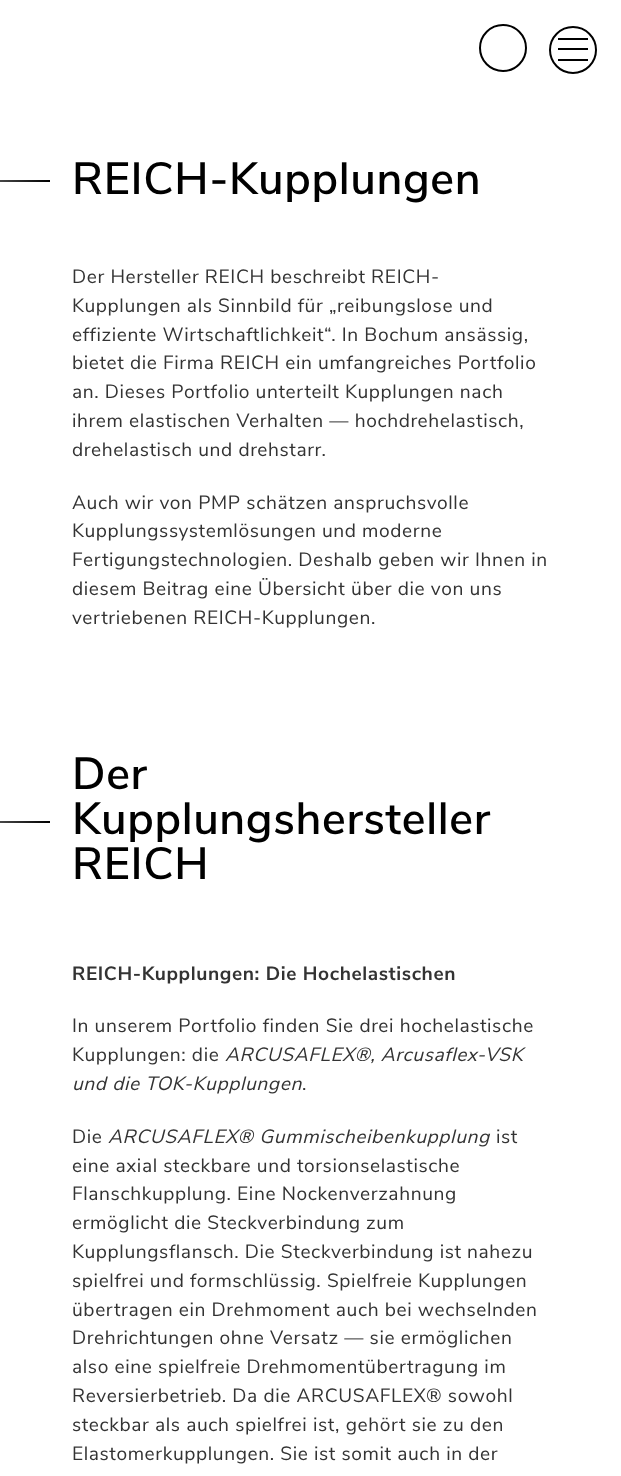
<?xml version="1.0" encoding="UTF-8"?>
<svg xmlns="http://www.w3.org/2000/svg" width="621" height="1476">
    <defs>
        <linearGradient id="g1" gradientUnits="userSpaceOnUse" x1="-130" y1="181" x2="50" y2="181"><stop offset="0" stop-color="#FFFFFF"/><stop offset="1" stop-color="#000000"/></linearGradient>
        <linearGradient id="g2" gradientUnits="userSpaceOnUse" x1="-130" y1="821" x2="50" y2="821"><stop offset="0" stop-color="#FFFFFF"/><stop offset="1" stop-color="#000000"/></linearGradient>
    </defs>
    <rect width="100%" height="100%" fill="#FFFFFF"/>
    <circle cx="503" cy="48" r="23" fill="none" stroke="#000000" stroke-width="2"/>
    <circle cx="573" cy="50" r="23" fill="none" stroke="#000000" stroke-width="2"/>
    <rect x="558" y="38" width="30" height="2" fill="#000000"/>
    <rect x="558" y="48" width="30" height="2" fill="#000000"/>
    <rect x="558" y="59" width="30" height="2" fill="#000000"/>
    <rect x="0" y="180" width="50" height="2" fill="url(#g1)"/>
    <text x="72" y="194" font-family="Nunito Sans" font-size="45" font-weight="600" letter-spacing="0.6" fill="#000000">REICH-Kupplungen</text>
    <text font-family="Nunito Sans" font-size="19.2" letter-spacing="0.6" fill="#333333">
        <tspan x="72" y="283">Der Hersteller REICH beschreibt REICH-</tspan>
        <tspan x="72" y="312">Kupplungen als Sinnbild für „reibungslose und</tspan>
        <tspan x="72" y="341">effiziente Wirtschaftlichkeit“. In Bochum ansässig,</tspan>
        <tspan x="72" y="369">bietet die Firma REICH ein umfangreiches Portfolio</tspan>
        <tspan x="72" y="398">an. Dieses Portfolio unterteilt Kupplungen nach</tspan>
        <tspan x="72" y="427">ihrem elastischen Verhalten — hochdrehelastisch,</tspan>
        <tspan x="72" y="456">drehelastisch und drehstarr.</tspan>
    </text>
    <text font-family="Nunito Sans" font-size="19.2" letter-spacing="0.6" fill="#333333">
        <tspan x="72" y="509">Auch wir von PMP schätzen anspruchsvolle</tspan>
        <tspan x="72" y="537">Kupplungssystemlösungen und moderne</tspan>
        <tspan x="72" y="566">Fertigungstechnologien. Deshalb geben wir Ihnen in</tspan>
        <tspan x="72" y="595">diesem Beitrag eine Übersicht über die von uns</tspan>
        <tspan x="72" y="624">vertriebenen REICH-Kupplungen.</tspan>
    </text>
    <rect x="0" y="821" width="50" height="2" fill="url(#g2)"/>
    <text font-family="Nunito Sans" font-size="45" font-weight="600" letter-spacing="0.6" fill="#000000">
        <tspan x="72" y="789">Der</tspan>
        <tspan x="72" y="834">Kupplungshersteller</tspan>
        <tspan x="72" y="879">REICH</tspan>
    </text>
    <text x="72" y="980" font-family="Nunito Sans" font-size="19.2" font-weight="700" letter-spacing="0.6" fill="#333333">REICH-Kupplungen: Die Hochelastischen</text>
    <text font-family="Nunito Sans" font-size="19.2" letter-spacing="0.6" fill="#333333">
        <tspan x="72" y="1032">In unserem Portfolio finden Sie drei hochelastische</tspan>
        <tspan x="72" y="1061">Kupplungen: die</tspan>
    </text>
    <text x="225" y="1061" font-family="Nunito Sans" font-size="19.2" font-style="italic" letter-spacing="0.6" fill="#333333">ARCUSAFLEX®, Arcusaflex-VSK</text>
    <text x="72" y="1090" font-family="Nunito Sans" font-size="19.2" font-style="italic" letter-spacing="0.6" fill="#333333">und die TOK-Kupplungen</text>
    <text x="302" y="1090" font-family="Nunito Sans" font-size="19.2" letter-spacing="0.6" fill="#333333">.</text>
    <text x="72" y="1143" font-family="Nunito Sans" font-size="19.2" letter-spacing="0.6" fill="#333333">Die</text>
    <text x="108" y="1143" font-family="Nunito Sans" font-size="19.2" font-style="italic" letter-spacing="0.6" fill="#333333">ARCUSAFLEX® Gummischeibenkupplung</text>
    <text x="496" y="1143" font-family="Nunito Sans" font-size="19.2" letter-spacing="0.6" fill="#333333">ist</text>
    <text font-family="Nunito Sans" font-size="19.2" letter-spacing="0.6" fill="#333333">
        <tspan x="72" y="1172">eine axial steckbare und torsionselastische</tspan>
        <tspan x="72" y="1200">Flanschkupplung. Eine Nockenverzahnung</tspan>
        <tspan x="72" y="1229">ermöglicht die Steckverbindung zum</tspan>
        <tspan x="72" y="1258">Kupplungsflansch. Die Steckverbindung ist nahezu</tspan>
        <tspan x="72" y="1287">spielfrei und formschlüssig. Spielfreie Kupplungen</tspan>
        <tspan x="72" y="1316">übertragen ein Drehmoment auch bei wechselnden</tspan>
        <tspan x="72" y="1344">Drehrichtungen ohne Versatz — sie ermöglichen</tspan>
        <tspan x="72" y="1373">also eine spielfreie Drehmomentübertragung im</tspan>
        <tspan x="72" y="1402">Reversierbetrieb. Da die ARCUSAFLEX® sowohl</tspan>
        <tspan x="72" y="1431">steckbar als auch spielfrei ist, gehört sie zu den</tspan>
        <tspan x="72" y="1460">Elastomerkupplungen. Sie ist somit auch in der</tspan>
    </text>
</svg>
